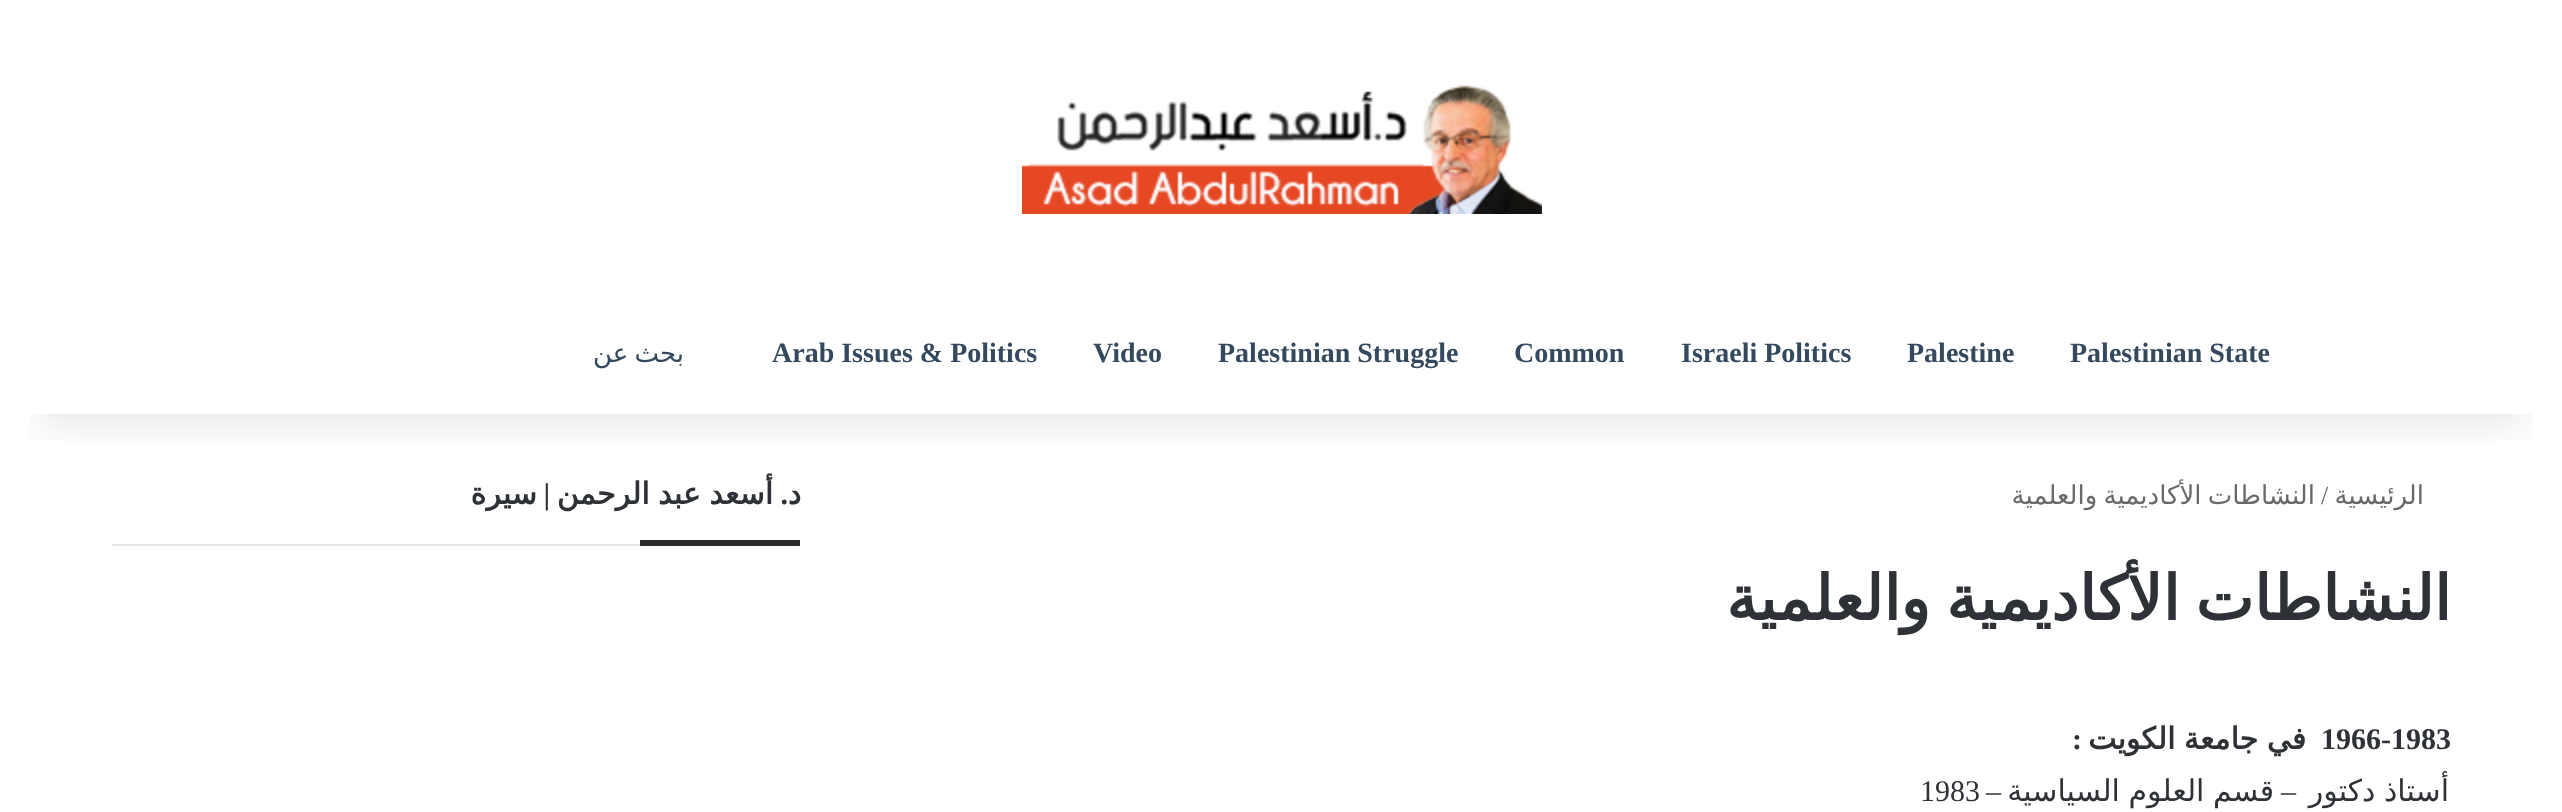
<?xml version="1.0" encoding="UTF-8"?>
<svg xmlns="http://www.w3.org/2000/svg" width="2562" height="812">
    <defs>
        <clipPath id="clip1"><rect x="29" y="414" width="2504" height="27"/></clipPath>
        <filter id="blur1" x="-50%" y="-200%" width="200%" height="500%"><feGaussianBlur stdDeviation="20"/></filter>
    </defs>
    <rect width="100%" height="100%" fill="#FFFFFF"/>
    <g clip-path="url(#clip1)">
        <rect x="40" y="90" width="2482" height="334" fill="#000000" fill-opacity="0.1" filter="url(#blur1)"/>
    </g>
    <image x="1022" y="85" width="520" height="129" href="img_01.png"/>
    <text x="2070" y="362" font-family="Liberation Serif" font-size="28" font-weight="700" fill="#34495E">Palestinian State</text>
    <text x="1907" y="362" font-family="Liberation Serif" font-size="28" font-weight="700" fill="#34495E">Palestine</text>
    <text x="1681" y="362" font-family="Liberation Serif" font-size="28" font-weight="700" fill="#34495E">Israeli Politics</text>
    <text x="1514" y="362" font-family="Liberation Serif" font-size="28" font-weight="700" fill="#34495E">Common</text>
    <text x="1218" y="362" font-family="Liberation Serif" font-size="28" font-weight="700" fill="#34495E">Palestinian Struggle</text>
    <text x="1093" y="362" font-family="Liberation Serif" font-size="28" font-weight="700" fill="#34495E">Video</text>
    <text x="772" y="362" font-family="Liberation Serif" font-size="28" font-weight="700" fill="#34495E">Arab Issues &amp; Politics</text>
    <text x="684" y="362" word-spacing="-2" font-family="DejaVu Sans" font-size="26" direction="rtl" fill="#34495E">بحث عن</text>
    <text x="2424" y="504" font-family="DejaVu Sans" font-size="26" direction="rtl" fill="#686868">الرئيسية</text>
    <text x="2321" y="504" font-family="Liberation Serif" font-size="26" fill="#686868">/</text>
    <text x="2315" y="504" word-spacing="-2" font-family="DejaVu Sans" font-size="26" direction="rtl" fill="#686868">النشاطات الأكاديمية والعلمية</text>
    <text x="2451" y="620" word-spacing="-4" font-family="DejaVu Sans" font-size="62" font-weight="700" direction="rtl" fill="#2E3136">النشاطات الأكاديمية والعلمية</text>
    <text x="2321" y="749" font-family="Liberation Serif" font-size="30" font-weight="700" fill="#2E3136">1966-1983</text>
    <text x="2306" y="749" word-spacing="-1" font-family="DejaVu Sans" font-size="30" font-weight="700" direction="rtl" fill="#2E3136">في جامعة الكويت</text>
    <text x="2082" y="749" font-family="Liberation Serif" font-size="30" font-weight="700" direction="rtl" fill="#2E3136">:</text>
    <text x="2449" y="801" word-spacing="-1" font-family="DejaVu Sans" font-size="30" direction="rtl" fill="#2E3136">أستاذ دكتور</text>
    <text x="2296" y="801" font-family="Liberation Serif" font-size="30" direction="rtl" fill="#2E3136">–</text>
    <text x="2274" y="801" word-spacing="-1" font-family="DejaVu Sans" font-size="30" direction="rtl" fill="#2E3136">قسم العلوم السياسية</text>
    <text x="2001" y="801" font-family="Liberation Serif" font-size="30" direction="rtl" fill="#2E3136">–</text>
    <text x="1920" y="801" font-family="Liberation Serif" font-size="30" fill="#2E3136">1983</text>
    <rect x="112" y="544" width="528" height="2" fill="#E6E6E6"/>
    <text x="801" y="504" font-family="DejaVu Sans" font-size="30" font-weight="700" direction="rtl" fill="#2E3136">د</text>
    <text x="788" y="504" font-family="Liberation Serif" font-size="30" font-weight="700" direction="rtl" fill="#2E3136">.</text>
    <text x="773" y="504" word-spacing="-1" font-family="DejaVu Sans" font-size="30" font-weight="700" direction="rtl" fill="#2E3136">أسعد عبد الرحمن</text>
    <text x="550" y="504" font-family="Liberation Serif" font-size="30" font-weight="700" direction="rtl" fill="#2E3136">|</text>
    <text x="537" y="504" font-family="DejaVu Sans" font-size="30" font-weight="700" direction="rtl" fill="#2E3136">سيرة</text>
    <rect x="640" y="540" width="160" height="6" fill="#292B2F"/>
</svg>
